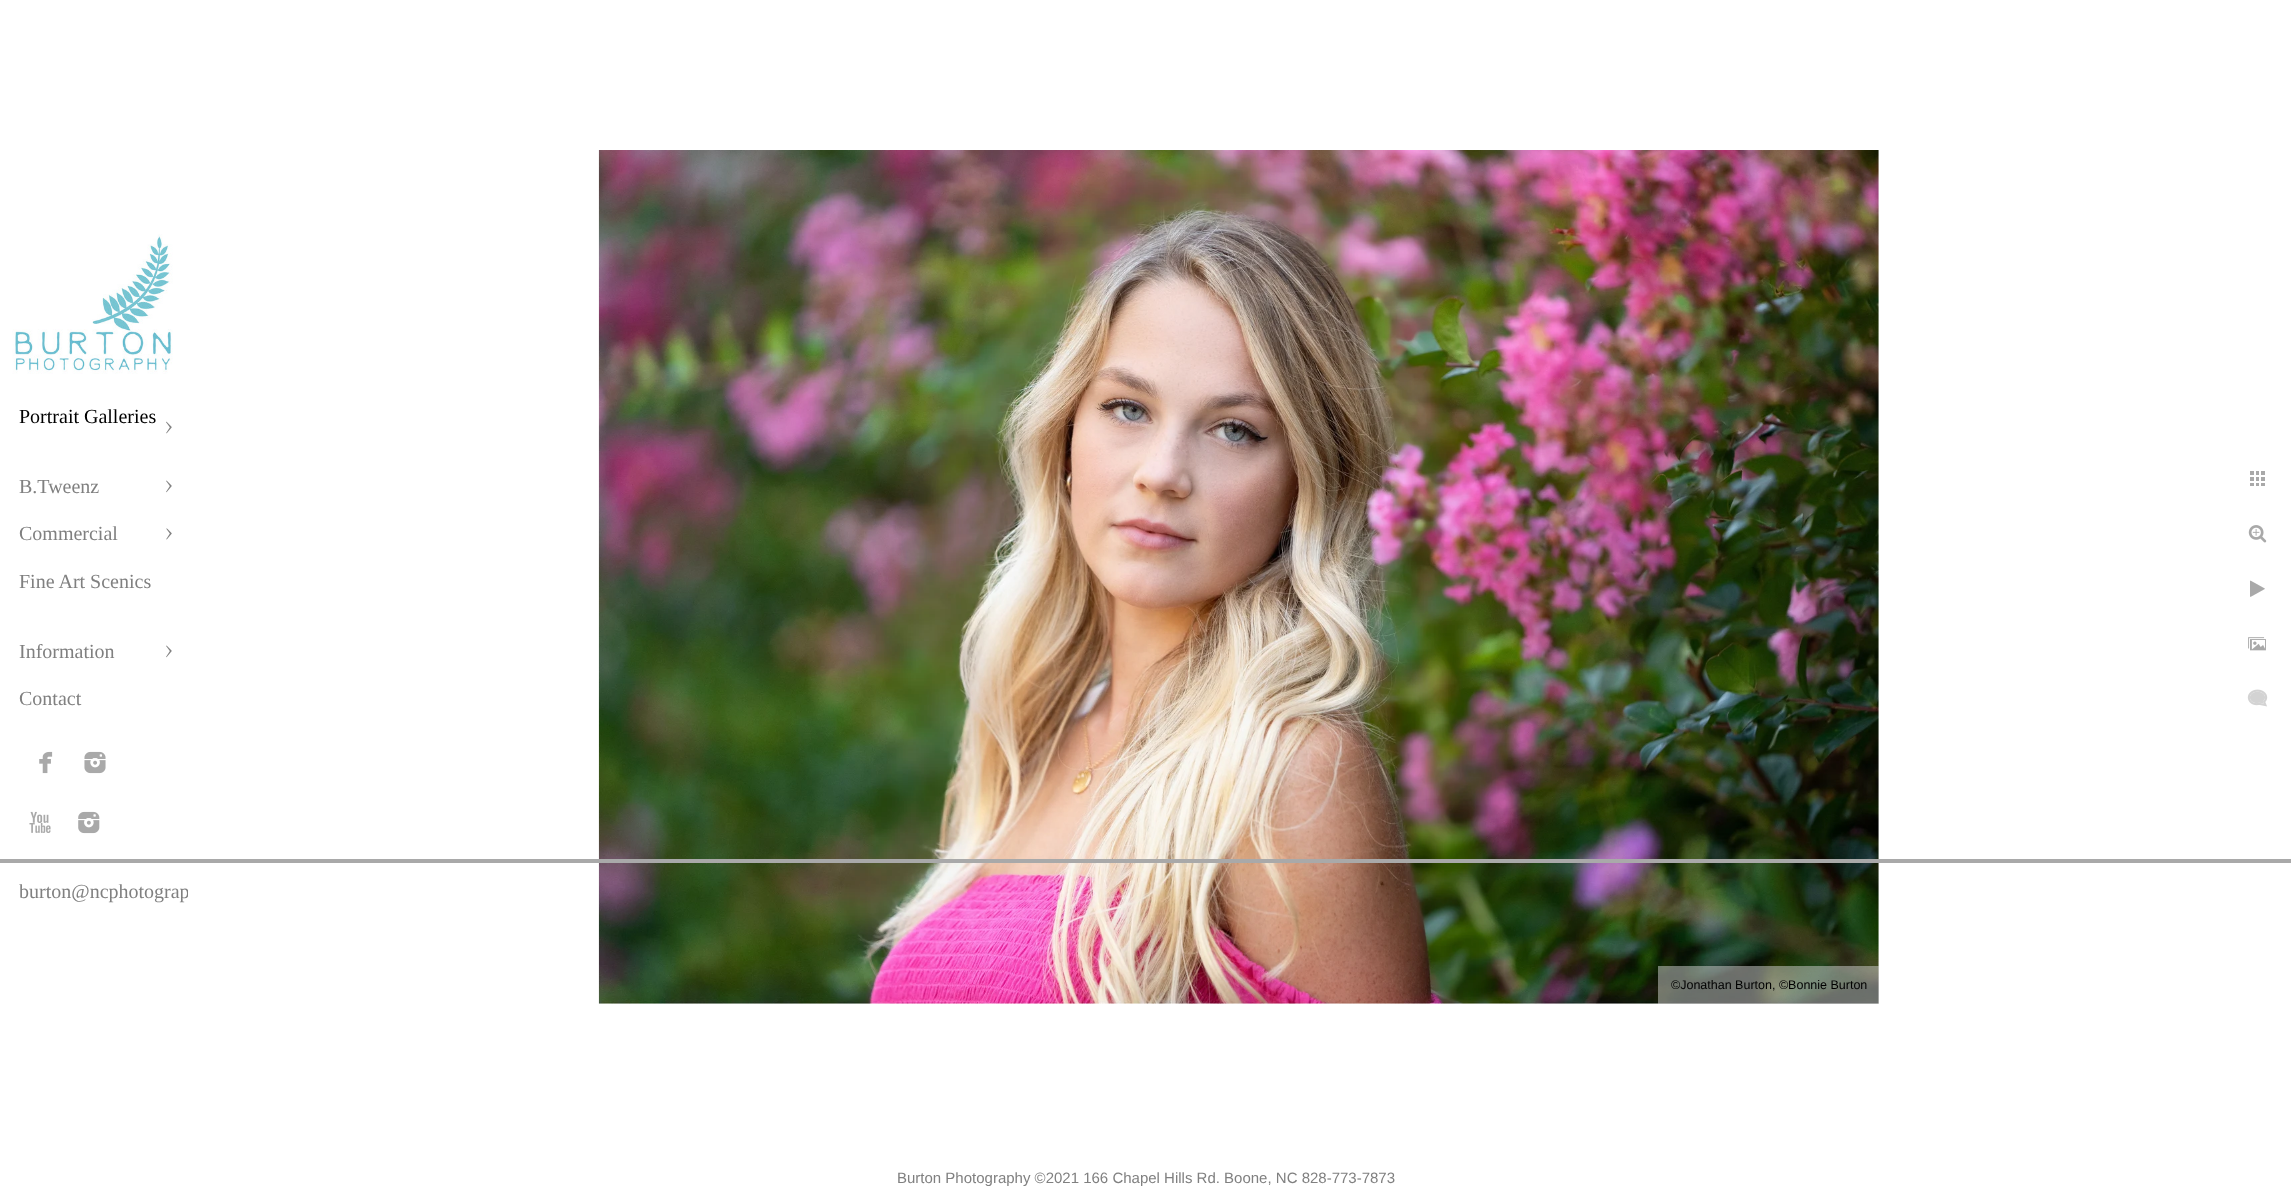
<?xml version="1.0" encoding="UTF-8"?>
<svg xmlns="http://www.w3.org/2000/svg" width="2291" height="1202">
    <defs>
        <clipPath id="clip1"><rect x="0" y="393" width="188" height="545"/></clipPath>
    </defs>
    <rect width="100%" height="100%" fill="#FFFFFF"/>
    <image x="12" y="234" width="161" height="140" href="img_01.png"/>
    <text x="19" y="423" font-family="Liberation Serif" font-size="20" fill="#000000">Portrait Galleries</text>
    <image x="166" y="421" width="6" height="13" href="img_02.png"/>
    <text x="19" y="493" font-family="Liberation Serif" font-size="20" fill="#808080">B.Tweenz</text>
    <image x="166" y="480" width="6" height="13" href="img_03.png"/>
    <text x="19" y="540" font-family="Liberation Serif" font-size="20" fill="#808080">Commercial</text>
    <image x="166" y="528" width="6" height="12" href="img_04.png"/>
    <text x="19" y="588" font-family="Liberation Serif" font-size="20" fill="#808080">Fine Art Scenics</text>
    <text x="19" y="658" font-family="Liberation Serif" font-size="20" fill="#808080">Information</text>
    <image x="166" y="645" width="6" height="13" href="img_03.png"/>
    <text x="19" y="705" font-family="Liberation Serif" font-size="20" fill="#808080">Contact</text>
    <image x="39" y="751" width="14" height="23" href="img_05.png"/>
    <image x="84" y="751" width="22" height="23" href="img_06.png"/>
    <image x="29" y="811" width="22" height="22" href="img_07.png"/>
    <image x="78" y="811" width="22" height="23" href="img_08.png"/>
    <g clip-path="url(#clip1)">
        <text x="19" y="898" font-family="Liberation Serif" font-size="20" fill="#808080">burton@ncphotograp</text>
    </g>
    <image x="2250" y="471" width="15" height="15" href="img_09.png"/>
    <image x="2248" y="525" width="19" height="18" href="img_10.png"/>
    <image x="2250" y="580" width="15" height="17" href="img_11.png"/>
    <image x="2248" y="637" width="18" height="14" href="img_12.png"/>
    <image x="2247" y="689" width="21" height="18" href="img_13.png"/>
    <image x="598" y="150" width="1281" height="854" href="img_14.png"/>
    <rect x="0" y="859" width="2291" height="4" fill="#A9A9A9"/>
    <rect x="1658" y="966" width="221" height="38" fill="#D3D3D3" fill-opacity="0.5"/>
    <text x="1671" y="989" font-family="Liberation Sans" font-size="12.5" fill="#000000">©Jonathan Burton, ©Bonnie Burton</text>
    <text x="897" y="1183" font-family="Liberation Sans" font-size="15" fill="#808080">Burton Photography ©2021 166 Chapel Hills Rd. Boone, NC 828-773-7873</text>
</svg>
